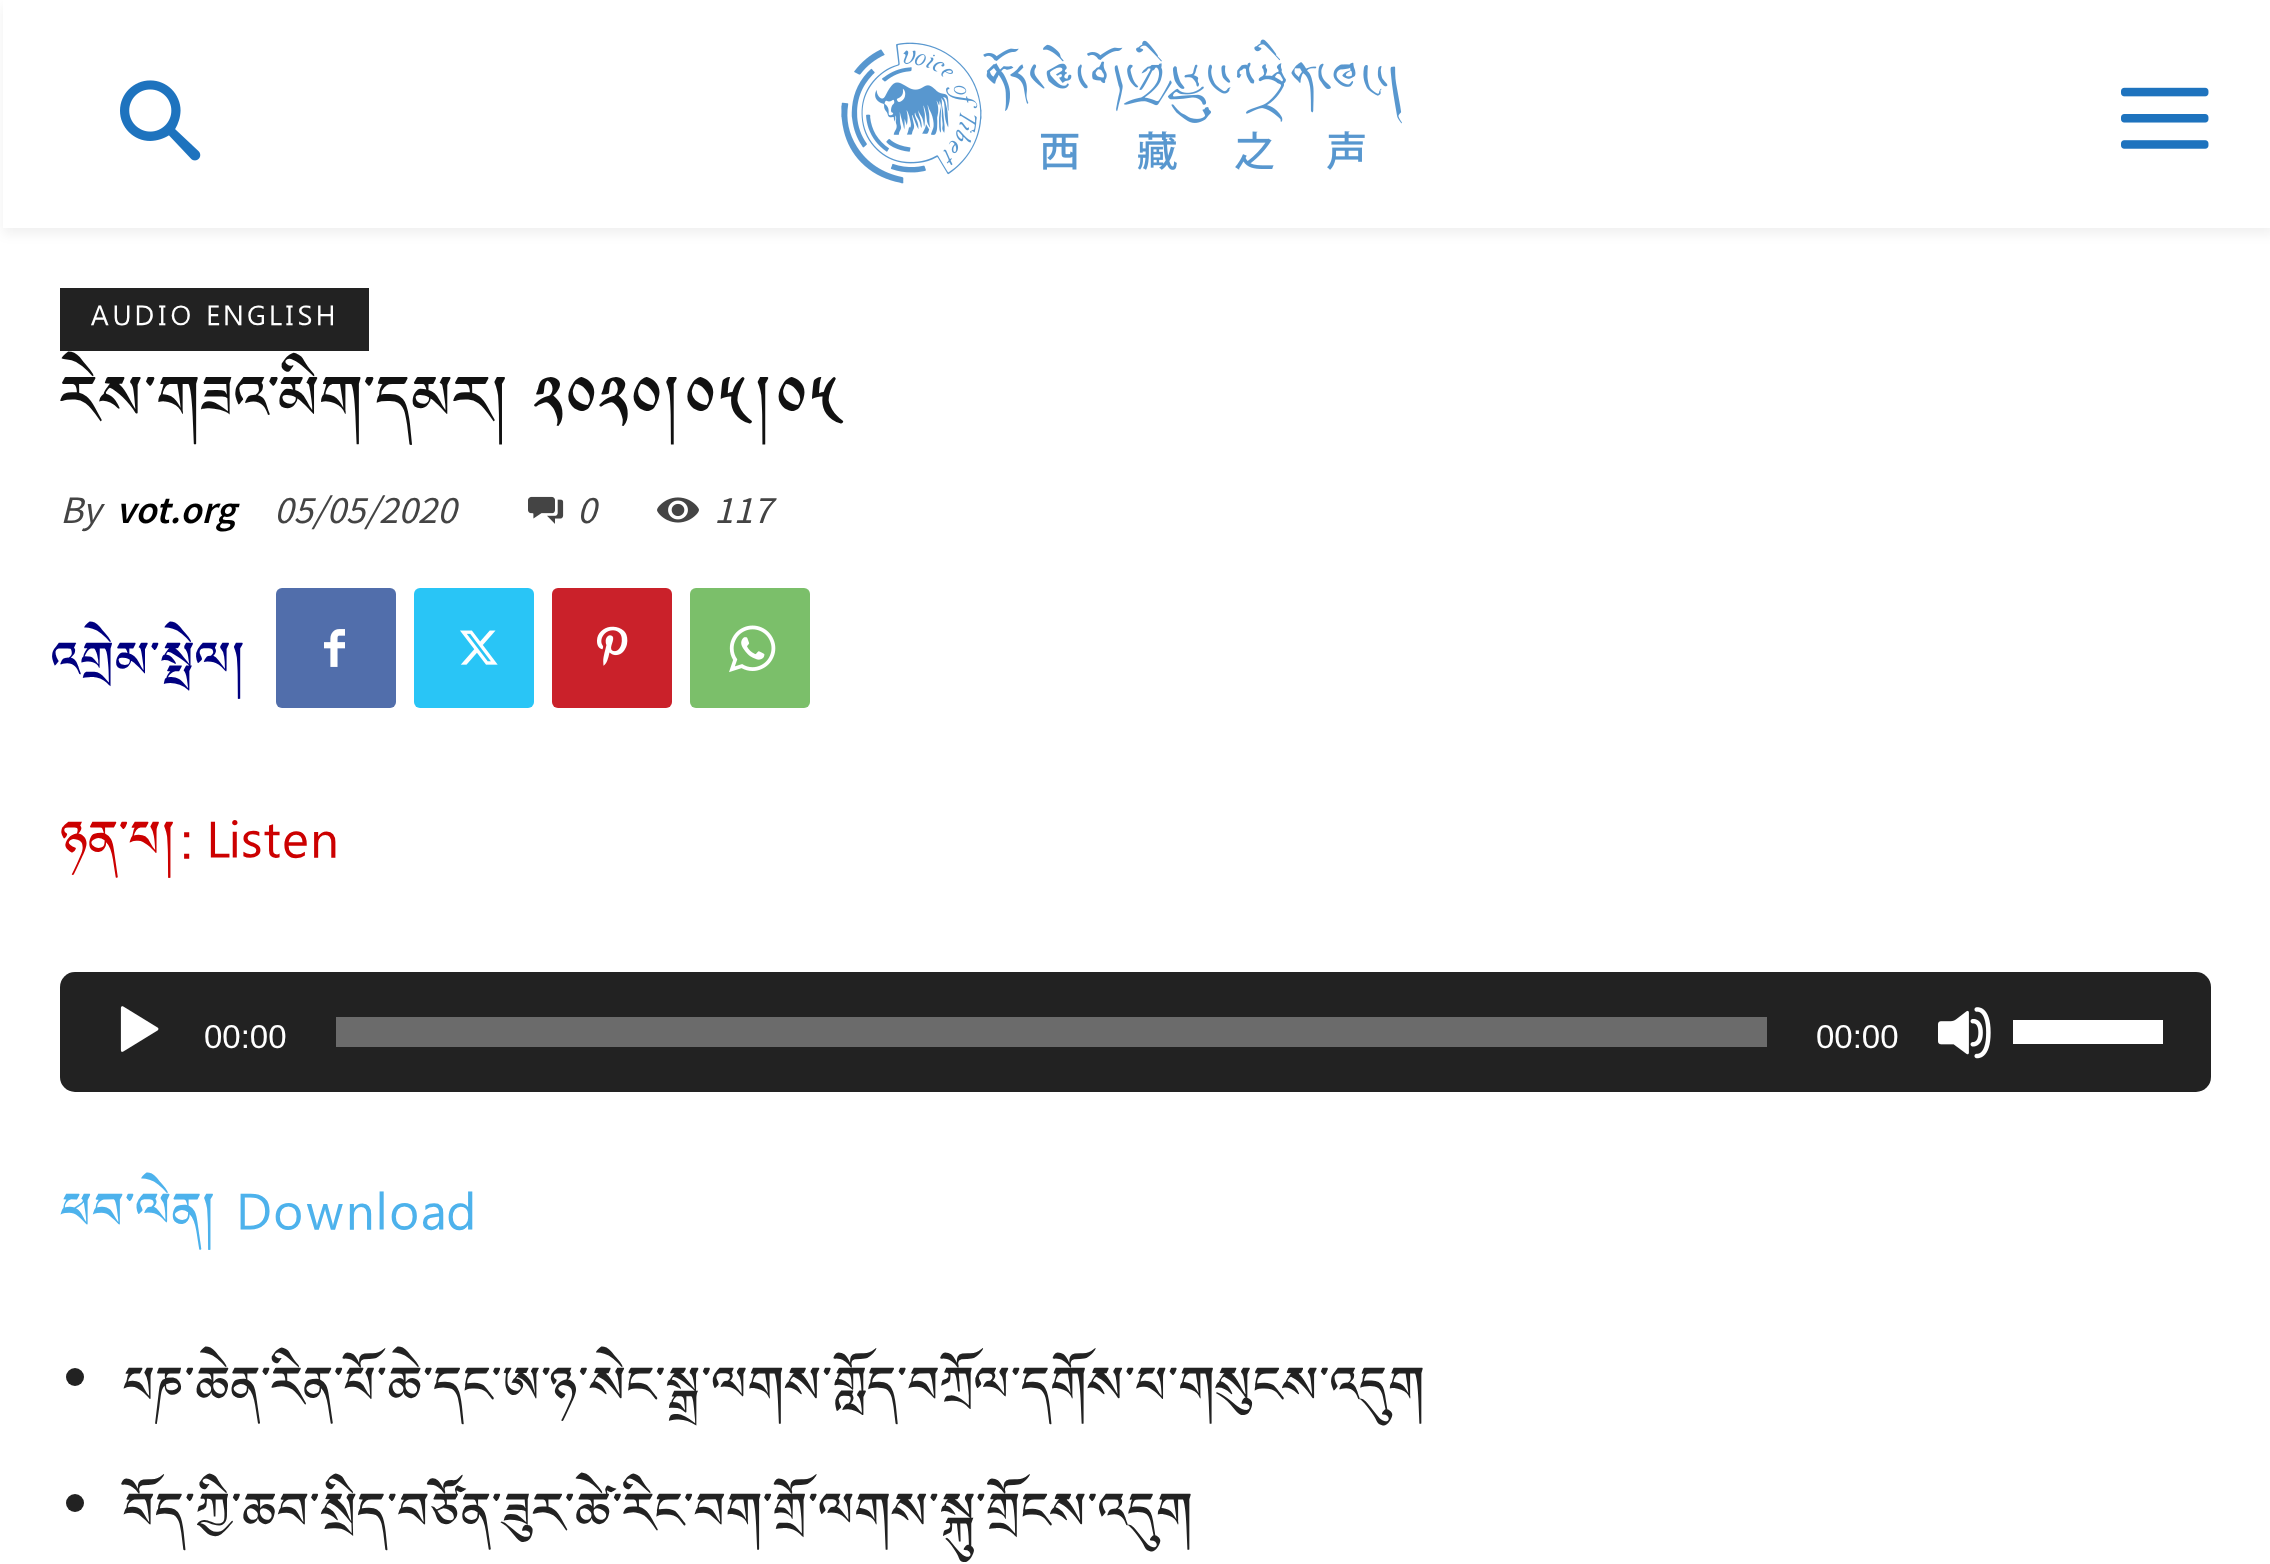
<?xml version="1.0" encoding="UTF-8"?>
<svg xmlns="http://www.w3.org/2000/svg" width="2270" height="1564">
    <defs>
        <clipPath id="clip1"><path d="M 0 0 H 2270 V 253 H 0 Z M 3 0 H 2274 V 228 H 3 Z" clip-rule="evenodd"/></clipPath>
        <filter id="blur1" x="-50%" y="-200%" width="200%" height="500%"><feGaussianBlur stdDeviation="6"/></filter>
    </defs>
    <rect width="100%" height="100%" fill="#FFFFFF"/>
    <image x="120" y="80" width="81" height="81" href="img_01.png"/>
    <image x="841" y="39" width="561" height="145" href="img_02.png"/>
    <image x="2121" y="87" width="88" height="62" href="img_03.png"/>
    <g clip-path="url(#clip1)">
        <rect x="3" y="6" width="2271" height="228" fill="#000000" fill-opacity="0.06" filter="url(#blur1)"/>
    </g>
    <rect x="60" y="288" width="309" height="63" fill="#222222"/>
    <text x="90" y="321" font-family="'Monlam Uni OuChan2'" font-size="33" letter-spacing="3" fill="#FFFFFF">AUDIO ENGLISH</text>
    <text x="60" y="411" font-family="'Monlam Uni OuChan2'" font-size="72" fill="#111111">རེས་གཟའ་མིག་དམར། ༢༠༢༠།༠༥།༠༥</text>
    <text x="60" y="523" font-family="Source Sans Pro" font-size="39" font-style="italic" fill="#444444">By</text>
    <text x="116" y="523" font-family="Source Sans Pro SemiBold" font-size="39" font-weight="600" font-style="italic" fill="#000000">vot.org</text>
    <text x="274" y="523" font-family="Source Sans Pro" font-size="39" font-style="italic" fill="#444444">05/05/2020</text>
    <image x="528" y="496" width="36" height="28" href="img_04.png"/>
    <text x="577" y="523" font-family="Source Sans Pro" font-size="39" font-style="italic" fill="#444444">0</text>
    <image x="657" y="497" width="42" height="26" href="img_05.png"/>
    <text x="714" y="523" font-family="Source Sans Pro" font-size="39" font-style="italic" fill="#444444">117</text>
    <text x="51" y="671" font-family="'Monlam Uni OuChan2'" font-size="60" fill="#000080">འགྲེམ་སྤེལ།</text>
    <rect x="276" y="588" width="120" height="120" rx="6" fill="#516EAB"/>
    <image x="324" y="629" width="21" height="38" href="img_06.png"/>
    <rect x="414" y="588" width="120" height="120" rx="6" fill="#29C5F6"/>
    <image x="460" y="630" width="38" height="35" href="img_07.png"/>
    <rect x="552" y="588" width="120" height="120" rx="6" fill="#CA212A"/>
    <image x="597" y="626" width="31" height="40" href="img_08.png"/>
    <rect x="690" y="588" width="120" height="120" rx="6" fill="#7BBF6A"/>
    <image x="729" y="625" width="47" height="48" href="img_09.png"/>
    <text x="60" y="850" font-family="'Monlam Uni OuChan2'" font-size="60" fill="#CC0000">ཉན་པ།: Listen</text>
    <rect x="60" y="972" width="2151" height="120" rx="15" fill="#222222"/>
    <image x="120" y="1006" width="39" height="46" href="img_10.png"/>
    <text x="204" y="1048" font-family="Liberation Sans" font-size="33" fill="#FFFFFF">00:00</text>
    <rect x="336" y="1017" width="1431" height="30" fill="#6B6B6B"/>
    <text x="1816" y="1048" font-family="Liberation Sans" font-size="33" fill="#FFFFFF">00:00</text>
    <image x="1938" y="1007" width="53" height="52" href="img_11.png"/>
    <rect x="2013" y="1020" width="150" height="24" fill="#FFFFFF"/>
    <text x="60" y="1222" font-family="'Monlam Uni OuChan2'" font-size="60" fill="#4DB2EC">ཕབ་ལེན། Download</text>
    <circle cx="75" cy="1377" r="9" fill="#222222"/>
    <text x="123" y="1396" font-family="'Monlam Uni OuChan2'" font-size="60" fill="#222222">པཎ་ཆེན་རིན་པོ་ཆེ་དང་ཨ་ཉ་སེང་སྒྲ་ལགས་གློད་བཀྲོལ་དགོས་པ་གསུངས་འདུག</text>
    <circle cx="75" cy="1503" r="9" fill="#222222"/>
    <text x="123" y="1522" font-family="'Monlam Uni OuChan2'" font-size="60" fill="#222222">བོད་ཀྱི་ཆབ་སྲིད་བཙོན་ཟུར་ཚེ་རིང་བག་གྲོ་ལགས་སྐུ་གྲོངས་འདུག</text>
</svg>
